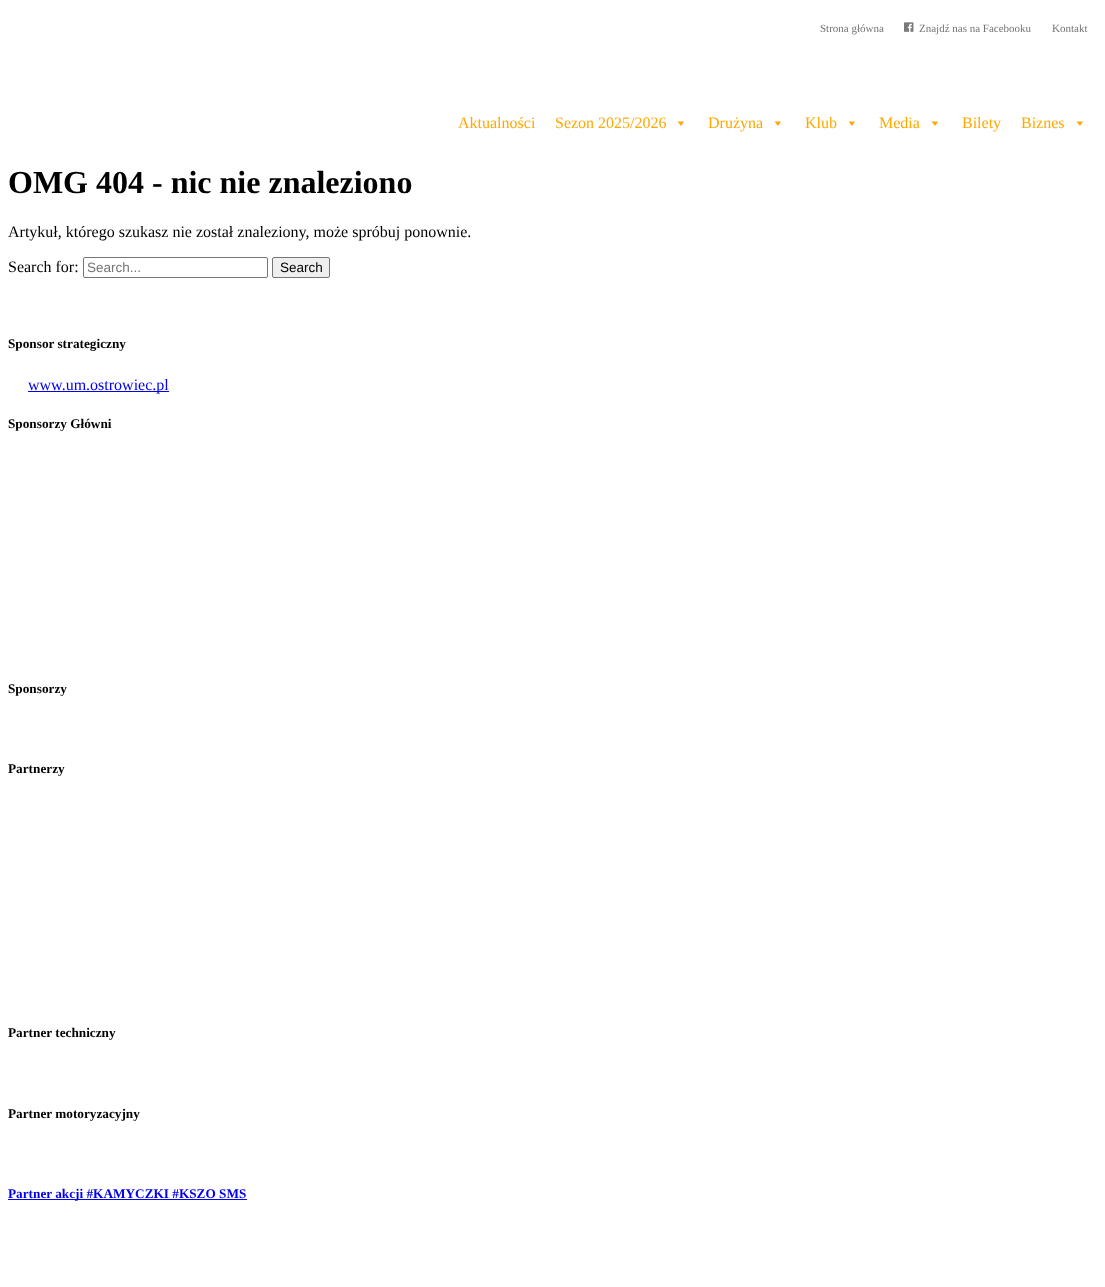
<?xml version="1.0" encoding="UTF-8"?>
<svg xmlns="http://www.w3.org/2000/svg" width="1105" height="1287">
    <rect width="100%" height="100%" fill="#FFFFFF"/>
    <text x="820" y="32" font-family="Liberation Serif" font-size="11" fill="#757575">Strona główna</text>
    <image x="904" y="22" width="10" height="10" href="img_01.png"/>
    <text x="919" y="32" font-family="Liberation Serif" font-size="11" fill="#757575">Znajdź nas na Facebooku</text>
    <text x="1052" y="32" font-family="Liberation Serif" font-size="11" fill="#757575">Kontakt</text>
    <text x="458" y="128" font-family="Liberation Serif" font-size="16" fill="#FFA800">Aktualności</text>
    <text x="555" y="128" font-family="Liberation Serif" font-size="16" fill="#FFA800">Sezon 2025/2026</text>
    <path d="M 684 121.5 L 681 126 L 677.5 121.5 Z" fill="#FFA800"/>
    <text x="708" y="128" font-family="Liberation Serif" font-size="16" fill="#FFA800">Drużyna</text>
    <path d="M 781 121.5 L 778 126 L 774.5 121.5 Z" fill="#FFA800"/>
    <text x="805" y="128" font-family="Liberation Serif" font-size="16" fill="#FFA800">Klub</text>
    <path d="M 855 121.5 L 852 126 L 848.5 121.5 Z" fill="#FFA800"/>
    <text x="879" y="128" font-family="Liberation Serif" font-size="16" fill="#FFA800">Media</text>
    <path d="M 938 121.5 L 935 126 L 931.5 121.5 Z" fill="#FFA800"/>
    <text x="962" y="128" font-family="Liberation Serif" font-size="16" fill="#FFA800">Bilety</text>
    <text x="1021" y="128" font-family="Liberation Serif" font-size="16" fill="#FFA800">Biznes</text>
    <path d="M 1083 121.5 L 1080 126 L 1076.5 121.5 Z" fill="#FFA800"/>
    <text x="8" y="193" font-family="Liberation Serif" font-size="32" font-weight="700" fill="#000000">OMG 404 - nic nie znaleziono</text>
    <text x="8" y="237" font-family="Liberation Serif" font-size="16" fill="#000000">Artykuł, którego szukasz nie został znaleziony, może spróbuj ponownie.</text>
    <text x="8" y="272" font-family="Liberation Serif" font-size="16" fill="#000000">Search for:</text>
    <rect x="83.5" y="257.5" width="184" height="20" rx="1.5" fill="none" stroke="#767676"/>
    <text x="87" y="272" font-family="Liberation Sans" font-size="13.5" fill="#757575">Search...</text>
    <rect x="272.5" y="257.5" width="57" height="20" rx="1.5" fill="#EFEFEF" stroke="#767676"/>
    <text x="280" y="272" font-family="Liberation Sans" font-size="13.5" fill="#000000">Search</text>
    <text x="8" y="348" font-family="Liberation Serif" font-size="13.25" font-weight="700" fill="#000000">Sponsor strategiczny</text>
    <rect x="28" y="391" width="141" height="1" fill="#0000EE"/>
    <text x="28" y="390" font-family="Liberation Serif" font-size="16" fill="#0000EE">www.um.ostrowiec.pl</text>
    <text x="8" y="428" font-family="Liberation Serif" font-size="13.25" font-weight="700" fill="#000000">Sponsorzy Główni</text>
    <text x="8" y="693" font-family="Liberation Serif" font-size="13.25" font-weight="700" fill="#000000">Sponsorzy</text>
    <text x="8" y="773" font-family="Liberation Serif" font-size="13.25" font-weight="700" fill="#000000">Partnerzy</text>
    <text x="8" y="1037" font-family="Liberation Serif" font-size="13.25" font-weight="700" fill="#000000">Partner techniczny</text>
    <text x="8" y="1118" font-family="Liberation Serif" font-size="13.25" font-weight="700" fill="#000000">Partner motoryzacyjny</text>
    <rect x="8" y="1199" width="239" height="1" fill="#0000EE"/>
    <text x="8" y="1198" font-family="Liberation Serif" font-size="13.25" font-weight="700" fill="#0000EE">Partner akcji #KAMYCZKI #KSZO SMS</text>
</svg>
